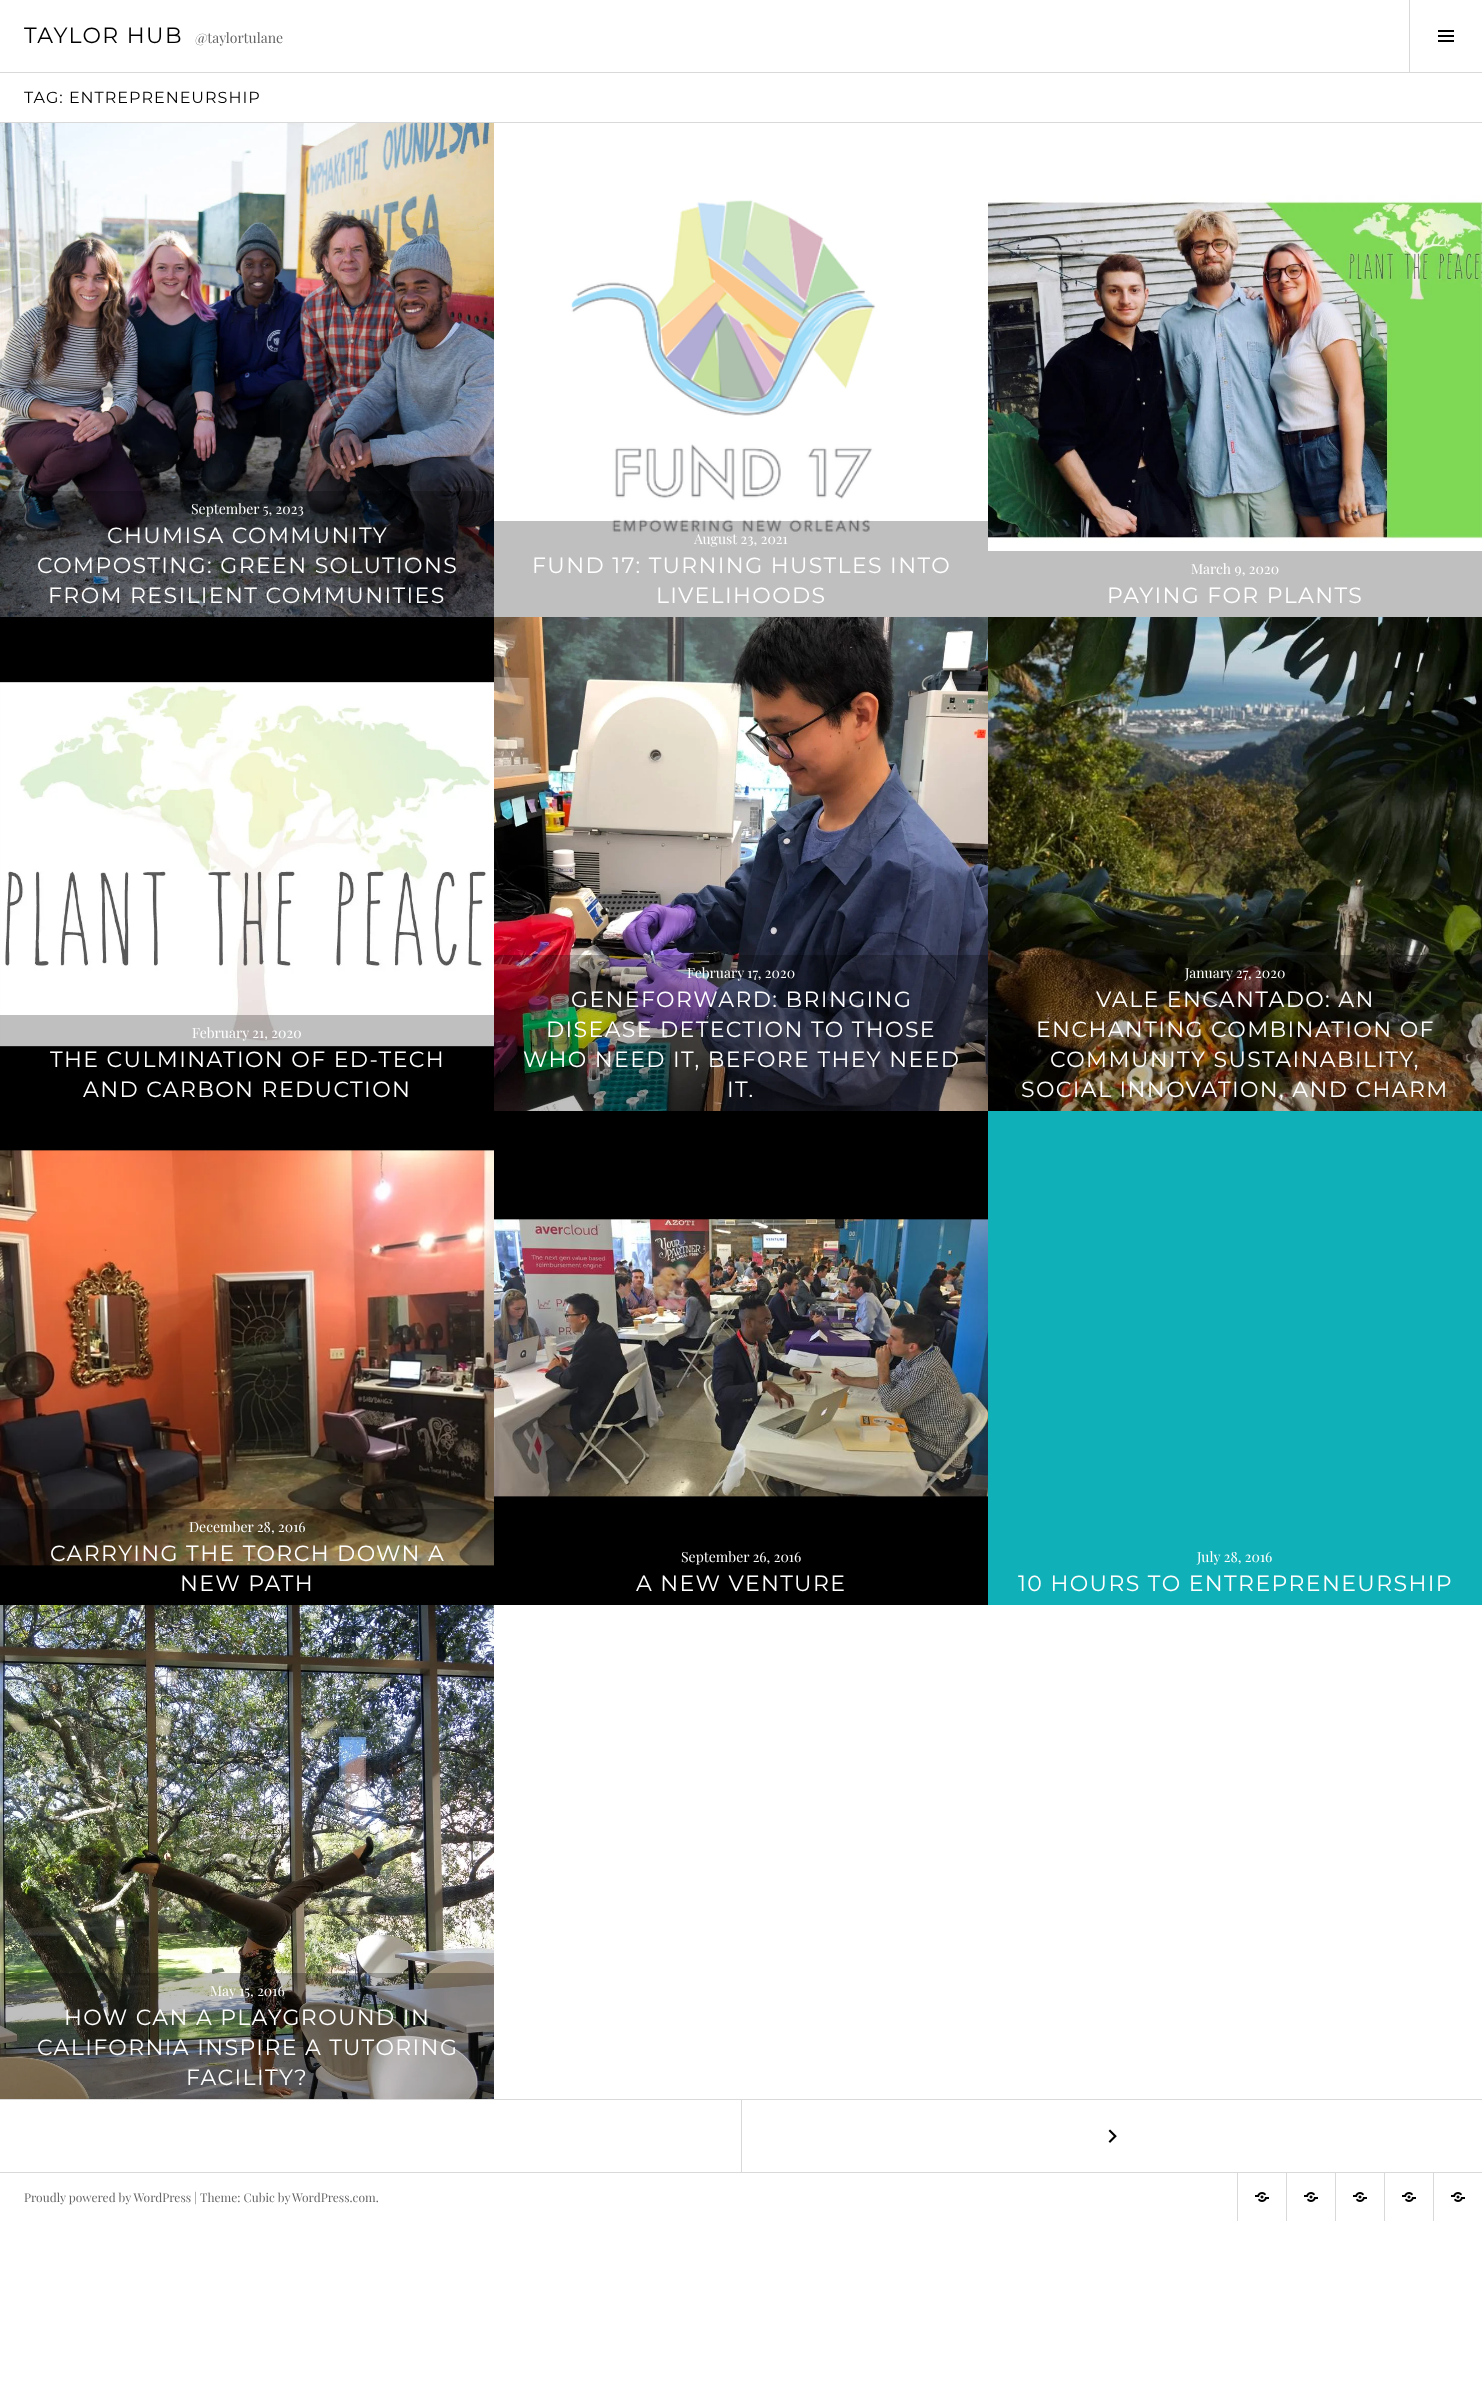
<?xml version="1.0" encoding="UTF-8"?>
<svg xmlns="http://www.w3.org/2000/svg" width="1482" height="2384">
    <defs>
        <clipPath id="clip1"><rect x="0" y="2173" width="1482" height="48"/></clipPath>
    </defs>
    <rect width="100%" height="100%" fill="#FFFFFF"/>
    <rect x="0" y="72" width="1482" height="1" fill="#D9D9D9"/>
    <text x="24" y="43" font-family="Montserrat" font-size="22" letter-spacing="1.4" fill="#000000">TAYLOR HUB</text>
    <text x="195" y="43" font-family="Playfair Display" font-size="14" fill="#666666">@taylortulane</text>
    <rect x="1409" y="0" width="1" height="72" fill="#D9D9D9"/>
    <image x="1438" y="30" width="16" height="12" href="img_01.png"/>
    <rect x="0" y="122" width="1482" height="1" fill="#D9D9D9"/>
    <text x="24" y="103" font-family="Montserrat" font-size="16" letter-spacing="1" fill="#000000">TAG: ENTREPRENEURSHIP</text>
    <image x="0" y="123" width="494" height="494" href="img_02.png"/>
    <rect x="0" y="491" width="494" height="126" fill="#000000" fill-opacity="0.25"/>
    <text x="191" y="514" font-family="Playfair Display" font-size="14" fill="#FFFFFF">September 5, 2023</text>
    <text x="107" y="543" font-family="Montserrat" font-size="22" letter-spacing="1.4" fill="#FFFFFF">CHUMISA COMMUNITY</text>
    <text x="37" y="573" font-family="Montserrat" font-size="22" letter-spacing="1.4" fill="#FFFFFF">COMPOSTING: GREEN SOLUTIONS</text>
    <text x="48" y="603" font-family="Montserrat" font-size="22" letter-spacing="1.4" fill="#FFFFFF">FROM RESILIENT COMMUNITIES</text>
    <image x="494" y="123" width="494" height="494" href="img_03.png"/>
    <rect x="494" y="521" width="494" height="96" fill="#000000" fill-opacity="0.25"/>
    <text x="694" y="544" font-family="Playfair Display" font-size="14" fill="#FFFFFF">August 23, 2021</text>
    <text x="532" y="573" font-family="Montserrat" font-size="22" letter-spacing="1.4" fill="#FFFFFF">FUND 17: TURNING HUSTLES INTO</text>
    <text x="656" y="603" font-family="Montserrat" font-size="22" letter-spacing="1.4" fill="#FFFFFF">LIVELIHOODS</text>
    <image x="988" y="123" width="494" height="428" href="img_04.png"/>
    <rect x="988" y="551" width="494" height="66" fill="#BFBFBF"/>
    <text x="1191" y="574" font-family="Playfair Display" font-size="14" fill="#FFFFFF">March 9, 2020</text>
    <text x="1107" y="603" font-family="Montserrat" font-size="22" letter-spacing="1.4" fill="#FFFFFF">PAYING FOR PLANTS</text>
    <rect x="0" y="617" width="494" height="988" fill="#000000"/>
    <image x="0" y="682" width="494" height="365" href="img_05.png"/>
    <rect x="0" y="1015" width="494" height="32" fill="#000000" fill-opacity="0.25"/>
    <text x="192" y="1038" font-family="Playfair Display" font-size="14" fill="#FFFFFF">February 21, 2020</text>
    <text x="50" y="1067" font-family="Montserrat" font-size="22" letter-spacing="1.4" fill="#FFFFFF">THE CULMINATION OF ED-TECH</text>
    <text x="83" y="1097" font-family="Montserrat" font-size="22" letter-spacing="1.4" fill="#FFFFFF">AND CARBON REDUCTION</text>
    <image x="494" y="617" width="494" height="494" href="img_06.png"/>
    <rect x="494" y="955" width="494" height="156" fill="#000000" fill-opacity="0.25"/>
    <text x="687" y="978" font-family="Playfair Display" font-size="14" fill="#FFFFFF">February 17, 2020</text>
    <text x="571" y="1007" font-family="Montserrat" font-size="22" letter-spacing="1.4" fill="#FFFFFF">GENEFORWARD: BRINGING</text>
    <text x="546" y="1037" font-family="Montserrat" font-size="22" letter-spacing="1.4" fill="#FFFFFF">DISEASE DETECTION TO THOSE</text>
    <text x="523" y="1067" font-family="Montserrat" font-size="22" letter-spacing="1.4" fill="#FFFFFF">WHO NEED IT, BEFORE THEY NEED</text>
    <text x="727" y="1097" font-family="Montserrat" font-size="22" letter-spacing="1.4" fill="#FFFFFF">IT.</text>
    <image x="988" y="617" width="494" height="494" href="img_07.png"/>
    <rect x="988" y="955" width="494" height="156" fill="#000000" fill-opacity="0.25"/>
    <text x="1185" y="978" font-family="Playfair Display" font-size="14" fill="#FFFFFF">January 27, 2020</text>
    <text x="1096" y="1007" font-family="Montserrat" font-size="22" letter-spacing="1.4" fill="#FFFFFF">VALE ENCANTADO: AN</text>
    <text x="1036" y="1037" font-family="Montserrat" font-size="22" letter-spacing="1.4" fill="#FFFFFF">ENCHANTING COMBINATION OF</text>
    <text x="1050" y="1067" font-family="Montserrat" font-size="22" letter-spacing="1.4" fill="#FFFFFF">COMMUNITY SUSTAINABILITY,</text>
    <text x="1021" y="1097" font-family="Montserrat" font-size="22" letter-spacing="1.4" fill="#FFFFFF">SOCIAL INNOVATION, AND CHARM</text>
    <image x="0" y="1150" width="494" height="416" href="img_08.png"/>
    <rect x="0" y="1509" width="494" height="57" fill="#000000" fill-opacity="0.25"/>
    <text x="189" y="1532" font-family="Playfair Display" font-size="14" fill="#FFFFFF">December 28, 2016</text>
    <text x="50" y="1561" font-family="Montserrat" font-size="22" letter-spacing="1.4" fill="#FFFFFF">CARRYING THE TORCH DOWN A</text>
    <text x="180" y="1591" font-family="Montserrat" font-size="22" letter-spacing="1.4" fill="#FFFFFF">NEW PATH</text>
    <rect x="494" y="1111" width="494" height="494" fill="#000000"/>
    <image x="494" y="1219" width="494" height="278" href="img_09.png"/>
    <text x="681" y="1562" font-family="Playfair Display" font-size="14" fill="#FFFFFF">September 26, 2016</text>
    <text x="636" y="1591" font-family="Montserrat" font-size="22" letter-spacing="1.4" fill="#FFFFFF">A NEW VENTURE</text>
    <rect x="988" y="1111" width="494" height="494" fill="#10B0B8"/>
    <text x="1197" y="1562" font-family="Playfair Display" font-size="14" fill="#FFFFFF">July 28, 2016</text>
    <text x="1018" y="1591" font-family="Montserrat" font-size="22" letter-spacing="1.4" fill="#FFFFFF">10 HOURS TO ENTREPRENEURSHIP</text>
    <image x="0" y="1605" width="494" height="494" href="img_10.png"/>
    <rect x="0" y="1973" width="494" height="126" fill="#000000" fill-opacity="0.25"/>
    <text x="210" y="1996" font-family="Playfair Display" font-size="14" fill="#FFFFFF">May 15, 2016</text>
    <text x="64" y="2025" font-family="Montserrat" font-size="22" letter-spacing="1.4" fill="#FFFFFF">HOW CAN A PLAYGROUND IN</text>
    <text x="37" y="2055" font-family="Montserrat" font-size="22" letter-spacing="1.4" fill="#FFFFFF">CALIFORNIA INSPIRE A TUTORING</text>
    <text x="186" y="2085" font-family="Montserrat" font-size="22" letter-spacing="1.4" fill="#FFFFFF">FACILITY?</text>
    <rect x="0" y="2099" width="1482" height="1" fill="#D9D9D9"/>
    <rect x="741" y="2100" width="1" height="72" fill="#D9D9D9"/>
    <image x="1108" y="2129" width="9" height="14" href="img_11.png"/>
    <rect x="0" y="2172" width="1482" height="1" fill="#D9D9D9"/>
    <text x="24" y="2202" font-family="Playfair Display" font-size="12" fill="#666666">Proudly powered by WordPress |</text>
    <text x="200" y="2202" font-family="Playfair Display" font-size="12" fill="#666666">Theme: Cubic by</text>
    <text x="292" y="2202" font-family="Playfair Display" font-size="12" fill="#666666">WordPress.com.</text>
    <g clip-path="url(#clip1)">
        <rect x="1237.5" y="2172.5" width="49" height="49" fill="none" stroke="#D9D9D9"/>
    </g>
    <image x="1255" y="2192" width="14" height="10" href="img_12.png"/>
    <g clip-path="url(#clip1)">
        <rect x="1286.5" y="2172.5" width="49" height="49" fill="none" stroke="#D9D9D9"/>
    </g>
    <image x="1304" y="2192" width="14" height="10" href="img_12.png"/>
    <g clip-path="url(#clip1)">
        <rect x="1335.5" y="2172.5" width="49" height="49" fill="none" stroke="#D9D9D9"/>
    </g>
    <image x="1353" y="2192" width="14" height="10" href="img_12.png"/>
    <g clip-path="url(#clip1)">
        <rect x="1384.5" y="2172.5" width="49" height="49" fill="none" stroke="#D9D9D9"/>
    </g>
    <image x="1402" y="2192" width="14" height="10" href="img_12.png"/>
    <image x="1451" y="2192" width="14" height="10" href="img_12.png"/>
</svg>
